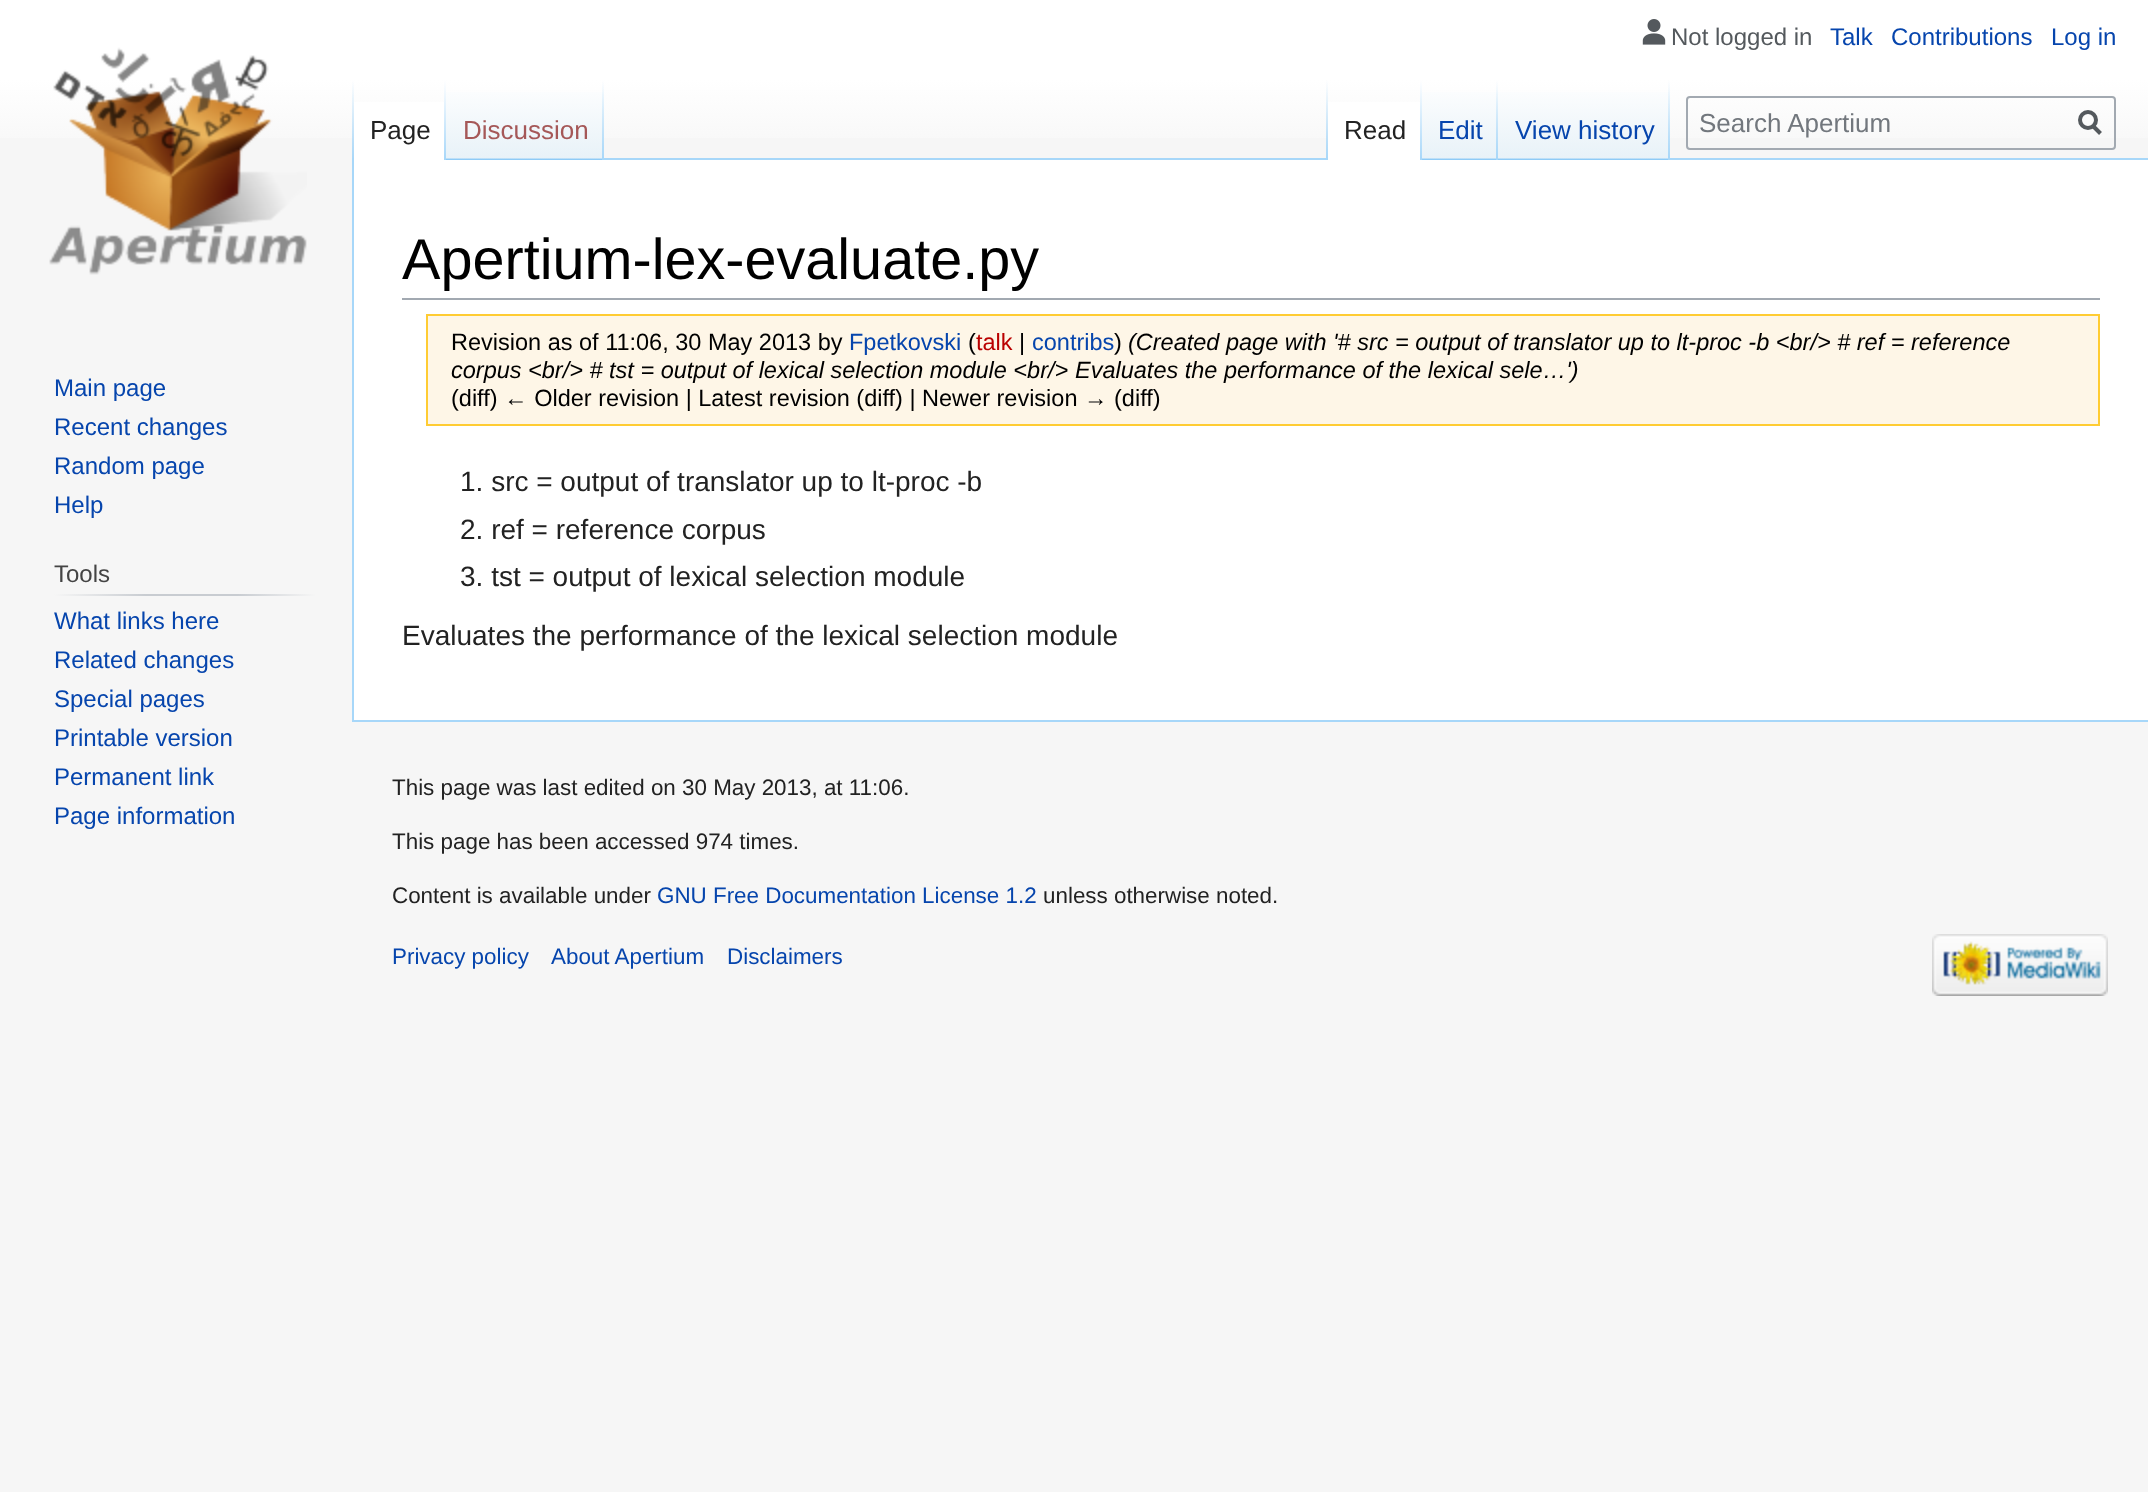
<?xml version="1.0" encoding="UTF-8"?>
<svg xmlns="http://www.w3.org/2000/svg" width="2148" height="1492">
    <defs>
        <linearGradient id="g1" gradientUnits="userSpaceOnUse" x1="1074" y1="0" x2="1074" y2="160"><stop offset="0.5" stop-color="#FFFFFF"/><stop offset="1" stop-color="#F6F6F6"/></linearGradient>
        <linearGradient id="g2" gradientUnits="userSpaceOnUse" x1="353" y1="80" x2="353" y2="160"><stop offset="0" stop-color="#A7D7F9" stop-opacity="0"/><stop offset="1" stop-color="#A7D7F9"/></linearGradient>
        <linearGradient id="g3" gradientUnits="userSpaceOnUse" x1="445" y1="80" x2="445" y2="160"><stop offset="0" stop-color="#FFFFFF"/><stop offset="1" stop-color="#A7D7F9"/></linearGradient>
        <linearGradient id="g4" gradientUnits="userSpaceOnUse" x1="525" y1="160" x2="525" y2="80"><stop offset="0" stop-color="#77C1F6"/><stop offset="0.03" stop-color="#E8F2F8"/><stop offset="1" stop-color="#FFFFFF"/></linearGradient>
        <linearGradient id="g5" gradientUnits="userSpaceOnUse" x1="603" y1="80" x2="603" y2="160"><stop offset="0" stop-color="#A7D7F9" stop-opacity="0"/><stop offset="1" stop-color="#A7D7F9"/></linearGradient>
        <linearGradient id="g6" gradientUnits="userSpaceOnUse" x1="1327" y1="80" x2="1327" y2="160"><stop offset="0" stop-color="#A7D7F9" stop-opacity="0"/><stop offset="1" stop-color="#A7D7F9"/></linearGradient>
        <linearGradient id="g7" gradientUnits="userSpaceOnUse" x1="1421" y1="80" x2="1421" y2="160"><stop offset="0" stop-color="#FFFFFF"/><stop offset="1" stop-color="#A7D7F9"/></linearGradient>
        <linearGradient id="g8" gradientUnits="userSpaceOnUse" x1="1460" y1="160" x2="1460" y2="80"><stop offset="0" stop-color="#77C1F6"/><stop offset="0.03" stop-color="#E8F2F8"/><stop offset="1" stop-color="#FFFFFF"/></linearGradient>
        <linearGradient id="g9" gradientUnits="userSpaceOnUse" x1="1497" y1="80" x2="1497" y2="160"><stop offset="0" stop-color="#A7D7F9" stop-opacity="0"/><stop offset="1" stop-color="#A7D7F9"/></linearGradient>
        <linearGradient id="g10" gradientUnits="userSpaceOnUse" x1="1584" y1="160" x2="1584" y2="80"><stop offset="0" stop-color="#77C1F6"/><stop offset="0.03" stop-color="#E8F2F8"/><stop offset="1" stop-color="#FFFFFF"/></linearGradient>
        <linearGradient id="g11" gradientUnits="userSpaceOnUse" x1="1669" y1="80" x2="1669" y2="160"><stop offset="0" stop-color="#A7D7F9" stop-opacity="0"/><stop offset="1" stop-color="#A7D7F9"/></linearGradient>
        <linearGradient id="g12" gradientUnits="userSpaceOnUse" x1="54" y1="595" x2="316" y2="595"><stop offset="0" stop-color="#F6F6F6"/><stop offset="0.35" stop-color="#C8CCD1"/><stop offset="0.7" stop-color="#C8CCD1"/><stop offset="1" stop-color="#F6F6F6"/></linearGradient>
    </defs>
    <rect width="100%" height="100%" fill="#F6F6F6"/>
    <rect x="0" y="0" width="2148" height="138" fill="url(#g1)"/>
    <image x="1642" y="19" width="24" height="26" href="img_01.png"/>
    <text x="1671" y="45" font-family="Liberation Sans" font-size="24" fill="#54595D">Not logged in</text>
    <text x="1830" y="45" font-family="Liberation Sans" font-size="24" fill="#0645AD">Talk</text>
    <text x="1891" y="45" font-family="Liberation Sans" font-size="24" fill="#0645AD">Contributions</text>
    <text x="2051" y="45" font-family="Liberation Sans" font-size="24" fill="#0645AD">Log in</text>
    <rect x="352" y="720" width="1796" height="2" fill="#A7D7F9"/>
    <rect x="352" y="158" width="2" height="564" fill="#A7D7F9"/>
    <rect x="352" y="80" width="2" height="80" fill="url(#g2)"/>
    <rect x="354" y="102" width="90" height="58" fill="#FFFFFF"/>
    <rect x="444" y="80" width="2" height="80" fill="url(#g3)"/>
    <text x="370" y="139" font-family="Liberation Sans" font-size="26" fill="#222222">Page</text>
    <rect x="446" y="92" width="158" height="68" fill="url(#g4)"/>
    <rect x="602" y="80" width="2" height="80" fill="url(#g5)"/>
    <text x="463" y="139" font-family="Liberation Sans" font-size="26" fill="#A55858">Discussion</text>
    <rect x="604" y="158" width="1544" height="2" fill="#A7D7F9"/>
    <rect x="1326" y="80" width="2" height="80" fill="url(#g6)"/>
    <rect x="1328" y="102" width="92" height="58" fill="#FFFFFF"/>
    <rect x="1420" y="80" width="2" height="80" fill="url(#g7)"/>
    <text x="1344" y="139" font-family="Liberation Sans" font-size="26" fill="#222222">Read</text>
    <rect x="1422" y="92" width="76" height="68" fill="url(#g8)"/>
    <rect x="1496" y="80" width="2" height="80" fill="url(#g9)"/>
    <text x="1438" y="139" font-family="Liberation Sans" font-size="26" fill="#0645AD">Edit</text>
    <rect x="1498" y="92" width="172" height="68" fill="url(#g10)"/>
    <rect x="1668" y="80" width="2" height="80" fill="url(#g11)"/>
    <text x="1515" y="139" font-family="Liberation Sans" font-size="26" fill="#0645AD">View history</text>
    <rect x="1687" y="97" width="428" height="52" rx="3" fill="none" stroke="#A2A9B1" stroke-width="2"/>
    <text x="1699" y="132" font-family="Liberation Sans" font-size="26" fill="#72777D">Search Apertium</text>
    <path d="M 2100.5 133.5 L 2092.5 125.5" fill="none" stroke="#54595D" stroke-width="4"/>
    <circle cx="2088" cy="120" r="8" fill="none" stroke="#54595D" stroke-width="4"/>
    <image x="49" y="47" width="258" height="228" href="img_02.png"/>
    <text font-family="Liberation Sans" font-size="24" fill="#0645AD">
        <tspan x="54" y="396">Main page</tspan>
        <tspan x="54" y="435">Recent changes</tspan>
        <tspan x="54" y="474">Random page</tspan>
        <tspan x="54" y="513">Help</tspan>
    </text>
    <text x="54" y="582" font-family="Liberation Sans" font-size="24" fill="#444444">Tools</text>
    <rect x="54" y="594" width="262" height="2" fill="url(#g12)"/>
    <text font-family="Liberation Sans" font-size="24" fill="#0645AD">
        <tspan x="54" y="629">What links here</tspan>
        <tspan x="54" y="668">Related changes</tspan>
        <tspan x="54" y="707">Special pages</tspan>
        <tspan x="54" y="746">Printable version</tspan>
        <tspan x="54" y="785">Permanent link</tspan>
        <tspan x="54" y="824">Page information</tspan>
    </text>
    <rect x="354" y="160" width="1794" height="560" fill="#FFFFFF"/>
    <rect x="402" y="298" width="1698" height="2" fill="#A2A9B1"/>
    <text x="402" y="279" font-family="Liberation Sans" font-size="57.6" fill="#000000">Apertium-lex-evaluate.py</text>
    <rect x="427" y="315" width="1672" height="110" fill="#FEF6E7" stroke="#FFCC33" stroke-width="2"/>
    <text x="451" y="350" font-family="Liberation Sans" font-size="23.5" fill="#000000">Revision as of 11:06, 30 May 2013 by</text>
    <text x="849" y="350" font-family="Liberation Sans" font-size="23.5" fill="#0645AD">Fpetkovski</text>
    <text x="968" y="350" font-family="Liberation Sans" font-size="23.5" fill="#000000">(</text>
    <text x="976" y="350" font-family="Liberation Sans" font-size="23.5" fill="#BA0000">talk</text>
    <text x="1019" y="350" font-family="Liberation Sans" font-size="23.5" fill="#000000">|</text>
    <text x="1032" y="350" font-family="Liberation Sans" font-size="23.5" fill="#0645AD">contribs</text>
    <text x="1114" y="350" font-family="Liberation Sans" font-size="23.5" fill="#000000">)</text>
    <text x="1128" y="350" font-family="Liberation Sans" font-size="23.5" font-style="italic" fill="#000000">(Created page with '# src = output of translator up to lt-proc -b &lt;br/&gt; # ref = reference</text>
    <text x="451" y="378" font-family="Liberation Sans" font-size="23.5" font-style="italic" fill="#000000">corpus &lt;br/&gt; # tst = output of lexical selection module &lt;br/&gt;</text>
    <text x="1075" y="378" font-family="Liberation Sans" font-size="23.5" font-style="italic" fill="#000000">Evaluates the performance of the lexical sele…')</text>
    <text x="451" y="406" font-family="Liberation Sans" font-size="23.5" fill="#000000">(diff) ← Older revision | Latest revision (diff) | Newer revision → (diff)</text>
    <text font-family="Liberation Sans" font-size="28" fill="#222222">
        <tspan x="460" y="491">1. src = output of translator up to lt-proc -b</tspan>
        <tspan x="460" y="539">2. ref = reference corpus</tspan>
        <tspan x="460" y="586">3. tst = output of lexical selection module</tspan>
    </text>
    <text x="402" y="645" font-family="Liberation Sans" font-size="28" fill="#222222">Evaluates the performance of the lexical selection module</text>
    <text x="392" y="795" font-family="Liberation Sans" font-size="22.4" fill="#222222">This page was last edited on 30 May 2013, at 11:06.</text>
    <text x="392" y="849" font-family="Liberation Sans" font-size="22.4" fill="#222222">This page has been accessed 974 times.</text>
    <text x="392" y="903" font-family="Liberation Sans" font-size="22.4" fill="#222222">Content is available under</text>
    <text x="657" y="903" font-family="Liberation Sans" font-size="22.4" fill="#0645AD">GNU Free Documentation License 1.2</text>
    <text x="1043" y="903" font-family="Liberation Sans" font-size="22.4" fill="#222222">unless otherwise noted.</text>
    <text x="392" y="964" font-family="Liberation Sans" font-size="22.4" fill="#0645AD">Privacy policy</text>
    <text x="551" y="964" font-family="Liberation Sans" font-size="22.4" fill="#0645AD">About Apertium</text>
    <text x="727" y="964" font-family="Liberation Sans" font-size="22.4" fill="#0645AD">Disclaimers</text>
    <image x="1932" y="934" width="176" height="62" href="img_03.png"/>
</svg>
